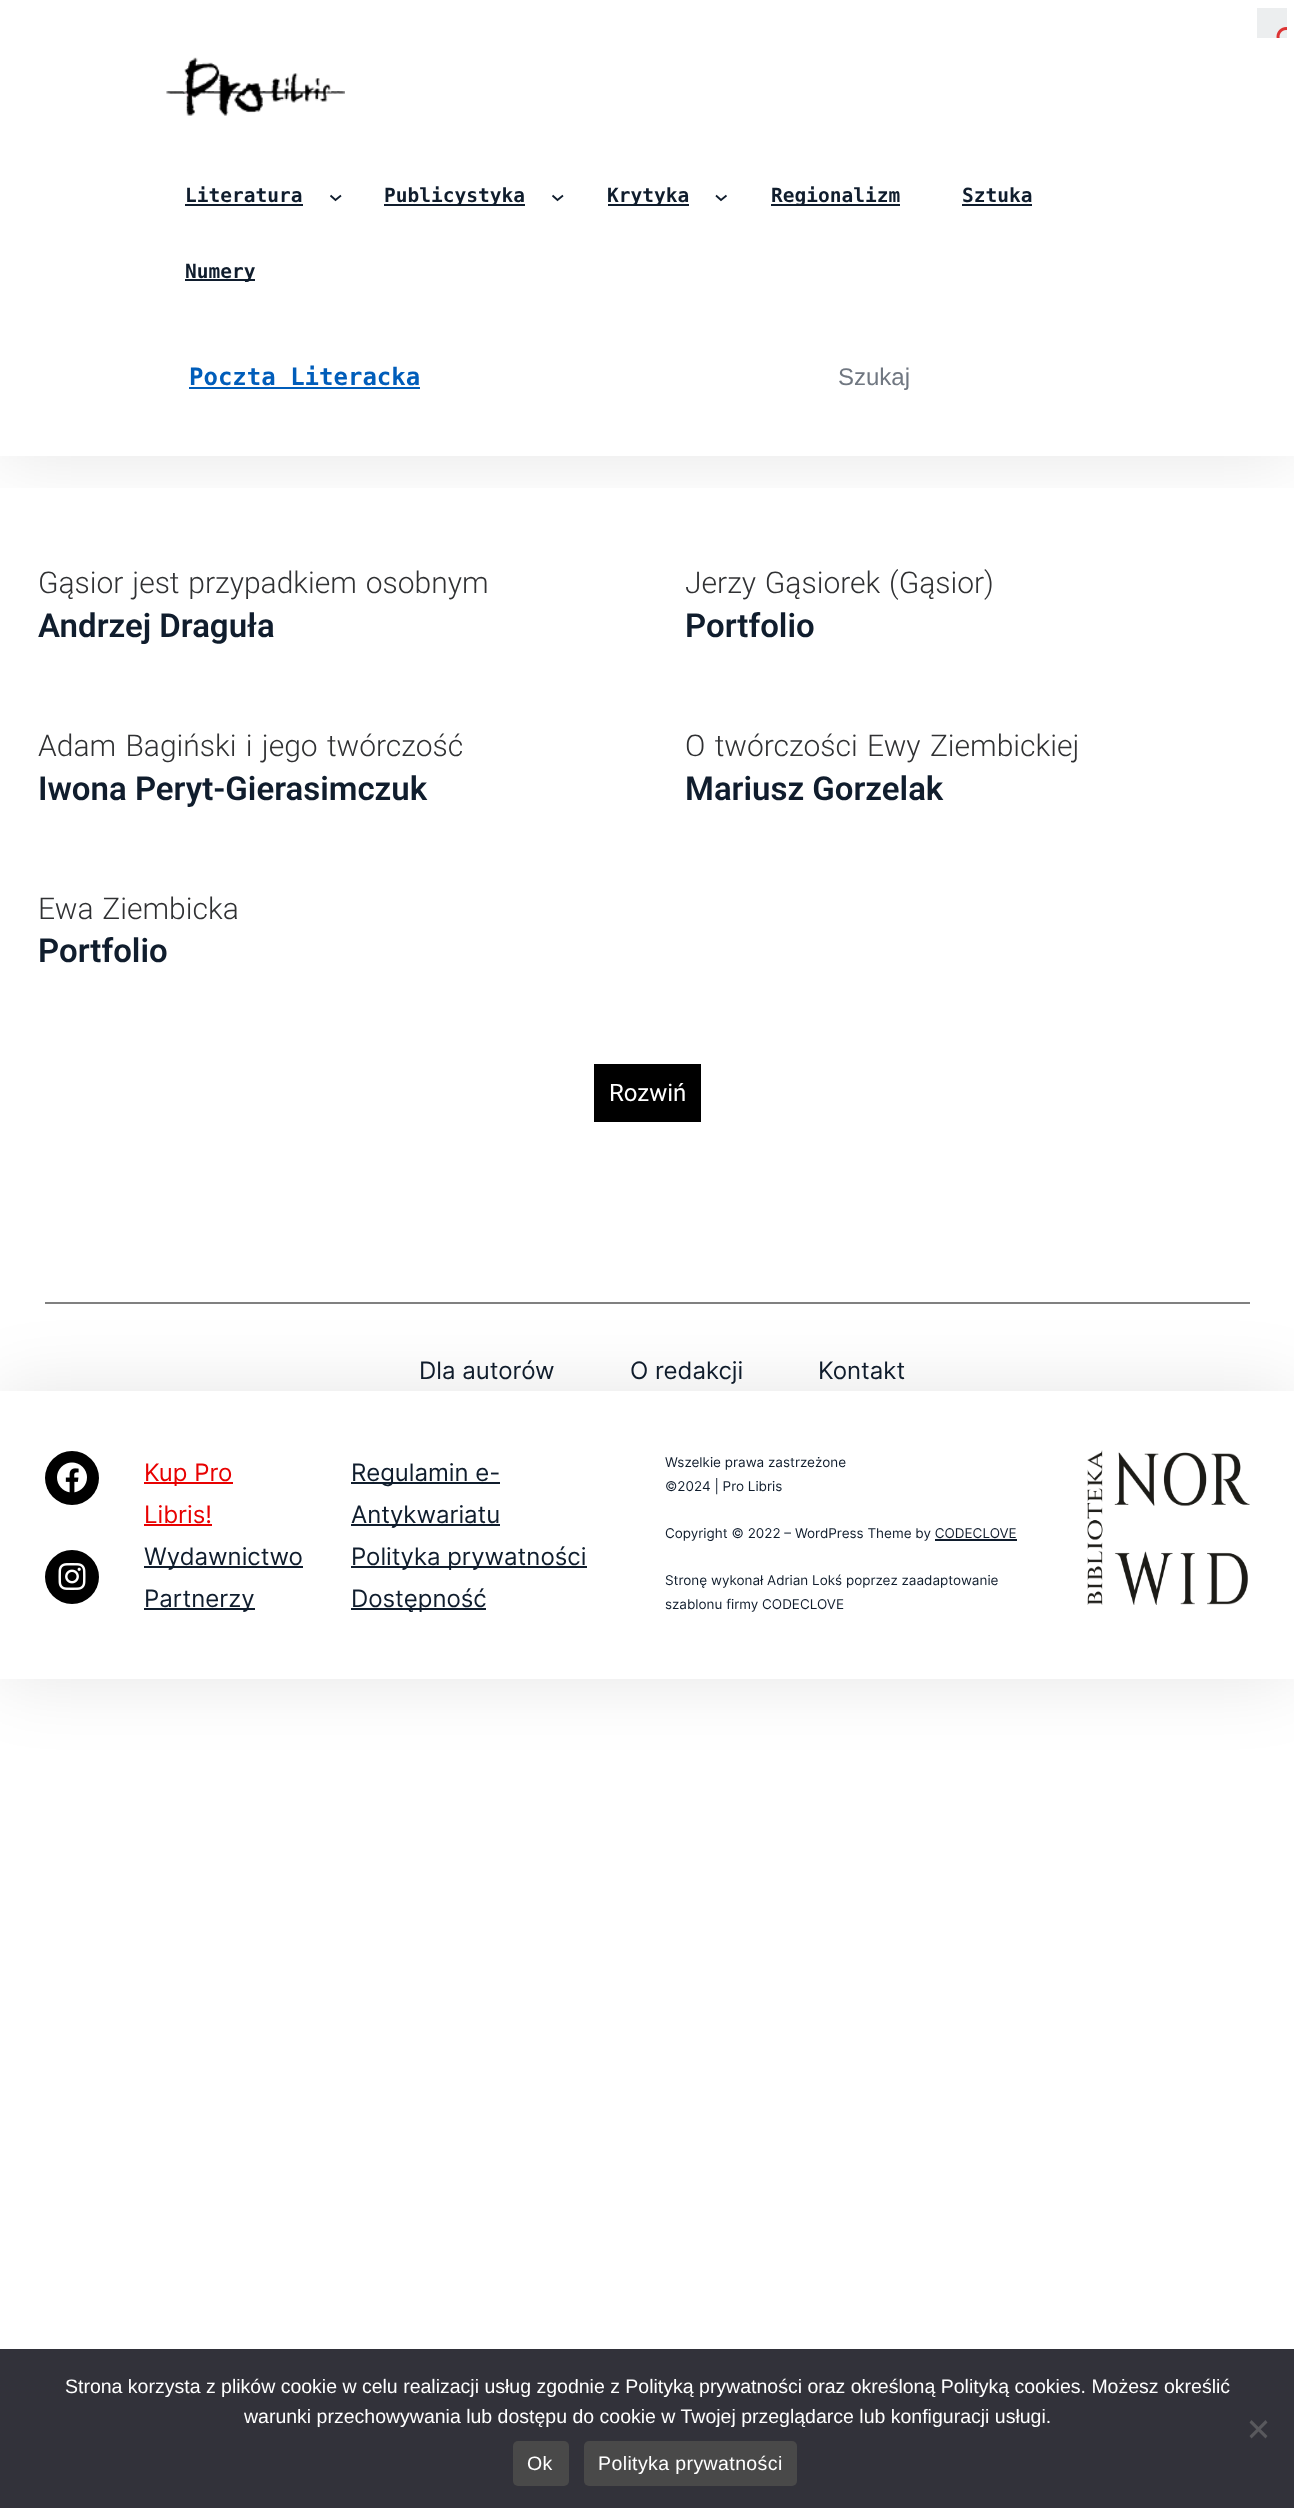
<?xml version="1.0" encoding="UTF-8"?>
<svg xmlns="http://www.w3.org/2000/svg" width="1294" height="2508">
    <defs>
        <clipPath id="clip1"><rect x="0" y="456" width="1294" height="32"/></clipPath>
        <filter id="blur1" x="-50%" y="-200%" width="200%" height="500%"><feGaussianBlur stdDeviation="37.5"/></filter>
        <clipPath id="clip2"><path d="M 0 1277 H 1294 V 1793 H 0 Z M 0 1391 H 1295 V 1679 H 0 Z" clip-rule="evenodd"/></clipPath>
    </defs>
    <rect width="100%" height="100%" fill="#FFFFFF"/>
    <g clip-path="url(#clip1)">
        <rect x="0" y="0" width="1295" height="456" fill="#000000" fill-opacity="0.1" filter="url(#blur1)"/>
    </g>
    <rect x="1257" y="8" width="30" height="30" fill="#ECEEEF"/>
    <image x="1276" y="27" width="11" height="11" href="img_01.png"/>
    <image x="166" y="57" width="179" height="59" href="img_02.png"/>
    <text x="185" y="202" font-family="DejaVu Sans Mono" font-size="19.5" font-weight="700" fill="#101D2D">Literatura</text>
    <rect x="185" y="204" width="118" height="2" fill="#101D2D"/>
    <path d="M 330.5 195.5 L 335.5 200 L 341 195.5" fill="none" stroke="#101D2D" stroke-width="1.8"/>
    <rect x="384" y="204" width="141" height="2" fill="#101D2D"/>
    <text x="384" y="202" font-family="DejaVu Sans Mono" font-size="19.5" font-weight="700" fill="#101D2D">Publicystyka</text>
    <path d="M 552.5 195.5 L 557.5 200 L 563 195.5" fill="none" stroke="#101D2D" stroke-width="1.8"/>
    <rect x="608" y="204" width="81" height="2" fill="#101D2D"/>
    <text x="607" y="202" font-family="DejaVu Sans Mono" font-size="19.5" font-weight="700" fill="#101D2D">Krytyka</text>
    <path d="M 716 195.5 L 721 200 L 726.5 195.5" fill="none" stroke="#101D2D" stroke-width="1.8"/>
    <rect x="771" y="204" width="129" height="2" fill="#101D2D"/>
    <text x="771" y="202" font-family="DejaVu Sans Mono" font-size="19.5" font-weight="700" fill="#101D2D">Regionalizm</text>
    <text x="962" y="202" font-family="DejaVu Sans Mono" font-size="19.5" font-weight="700" fill="#101D2D">Sztuka</text>
    <rect x="962" y="204" width="70" height="2" fill="#101D2D"/>
    <rect x="185" y="279" width="70" height="2" fill="#101D2D"/>
    <text x="185" y="278" font-family="DejaVu Sans Mono" font-size="19.5" font-weight="700" fill="#101D2D">Numery</text>
    <text x="189" y="385" font-family="DejaVu Sans Mono" font-size="24" font-weight="700" fill="#005DBA">Poczta Literacka</text>
    <rect x="189" y="387" width="231" height="2" fill="#005DBA"/>
    <text x="838" y="385" font-family="Liberation Sans" font-size="24" fill="#707781">Szukaj</text>
    <text x="38" y="593" word-spacing="1.5" font-family="Roboto" font-size="30" font-weight="300" fill="#303133">Gąsior jest przypadkiem osobnym</text>
    <text x="38" y="637" font-family="Roboto" font-size="33" font-weight="600" fill="#101D2D">Andrzej Draguła</text>
    <text x="685" y="593" word-spacing="1.5" font-family="Roboto" font-size="30" font-weight="300" fill="#303133">Jerzy Gąsiorek (Gąsior)</text>
    <text x="685" y="637" font-family="Roboto" font-size="33" font-weight="600" fill="#101D2D">Portfolio</text>
    <text x="38" y="756" word-spacing="2" font-family="Roboto" font-size="30" font-weight="300" fill="#303133">Adam Bagiński i jego twórczość</text>
    <text x="38" y="800" font-family="Roboto" font-size="33" font-weight="600" fill="#101D2D">Iwona Peryt-Gierasimczuk</text>
    <text x="685" y="756" word-spacing="2" font-family="Roboto" font-size="30" font-weight="300" fill="#303133">O twórczości Ewy Ziembickiej</text>
    <text x="685" y="800" font-family="Roboto" font-size="33" font-weight="600" fill="#101D2D">Mariusz Gorzelak</text>
    <text x="38" y="919" word-spacing="1.5" font-family="Roboto" font-size="30" font-weight="300" fill="#303133">Ewa Ziembicka</text>
    <text x="38" y="962" font-family="Roboto" font-size="33" font-weight="600" fill="#101D2D">Portfolio</text>
    <rect x="594" y="1064" width="107" height="58" fill="#000000"/>
    <text x="609" y="1101" font-family="Roboto" font-size="24" fill="#FFFFFF">Rozwiń</text>
    <rect x="45" y="1302" width="1205" height="2" fill="#808080"/>
    <text x="419" y="1379" font-family="Inter" font-size="24" fill="#101D2D">Dla autorów</text>
    <text x="630" y="1379" font-family="Inter" font-size="24" fill="#101D2D">O redakcji</text>
    <text x="818" y="1379" font-family="Inter" font-size="24" fill="#101D2D">Kontakt</text>
    <g clip-path="url(#clip2)">
        <rect x="0" y="1391" width="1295" height="288" fill="#000000" fill-opacity="0.1" filter="url(#blur1)"/>
    </g>
    <circle cx="72" cy="1478" r="27" fill="#000000"/>
    <image x="57" y="1462" width="30" height="31" href="img_03.png"/>
    <circle cx="72" cy="1577" r="27" fill="#000000"/>
    <image x="58" y="1563" width="28" height="27" href="img_04.png"/>
    <rect x="144" y="1482" width="89" height="2" fill="#E80101"/>
    <text font-family="Inter" font-size="24" fill="#E80101">
        <tspan x="144" y="1481">Kup Pro</tspan>
        <tspan x="144" y="1523">Libris!</tspan>
    </text>
    <rect x="144" y="1524" width="68" height="2" fill="#E80101"/>
    <rect x="144" y="1566" width="159" height="2" fill="#101D2D"/>
    <text x="144" y="1565" font-family="Inter" font-size="24" fill="#101D2D">Wydawnictwo</text>
    <rect x="144" y="1608" width="111" height="2" fill="#101D2D"/>
    <text x="144" y="1607" font-family="Inter" font-size="24" fill="#101D2D">Partnerzy</text>
    <rect x="351" y="1482" width="149" height="2" fill="#101D2D"/>
    <text x="351" y="1481" font-family="Inter" font-size="24" fill="#101D2D">Regulamin e-</text>
    <rect x="351" y="1524" width="149" height="2" fill="#101D2D"/>
    <text x="351" y="1523" font-family="Inter" font-size="24" fill="#101D2D">Antykwariatu</text>
    <rect x="351" y="1566" width="236" height="2" fill="#101D2D"/>
    <text x="351" y="1565" font-family="Inter" font-size="24" fill="#101D2D">Polityka prywatności</text>
    <rect x="351" y="1608" width="135" height="2" fill="#101D2D"/>
    <text x="351" y="1607" font-family="Inter" font-size="24" fill="#101D2D">Dostępność</text>
    <text font-family="Inter" font-size="13.5" fill="#101D2D">
        <tspan x="665" y="1467">Wszelkie prawa zastrzeżone</tspan>
        <tspan x="665" y="1491">©2024 | Pro Libris</tspan>
    </text>
    <text x="665" y="1538" font-family="Inter" font-size="13.5" fill="#101D2D">Copyright © 2022 – WordPress Theme by CODECLOVE</text>
    <rect x="935" y="1539" width="82" height="2" fill="#101D2D"/>
    <text font-family="Inter" font-size="13.5" fill="#101D2D">
        <tspan x="665" y="1585">Stronę wykonał Adrian Lokś poprzez zaadaptowanie</tspan>
        <tspan x="665" y="1609">szablonu firmy CODECLOVE</tspan>
    </text>
    <image x="1087" y="1450" width="163" height="155" href="img_05.png"/>
    <rect x="0" y="2349" width="1294" height="159" fill="#32323A"/>
    <text x="65" y="2393" font-family="Liberation Sans" font-size="19.5" fill="#FFFFFF">Strona korzysta z plików cookie w celu realizacji usług zgodnie z Polityką prywatności oraz określoną Polityką cookies. Możesz określić</text>
    <text x="244" y="2423" font-family="Liberation Sans" font-size="19.5" fill="#FFFFFF">warunki przechowywania lub dostępu do cookie w Twojej przeglądarce lub konfiguracji usługi.</text>
    <path d="M 1265.5 2420 L 1267.5 2422.5 L 1251.5 2438.5 L 1249.5 2436 Z" fill="#59595D"/>
    <path d="M 1249.5 2422.5 L 1251.5 2420 L 1267.5 2436 L 1265.5 2438.5 Z" fill="#59595D"/>
    <rect x="513" y="2441" width="56" height="45" rx="5" fill="#494949"/>
    <text x="527" y="2470" font-family="Liberation Sans" font-size="19.5" letter-spacing="0.4" fill="#FFFFFF">Ok</text>
    <rect x="584" y="2441" width="213" height="45" rx="5" fill="#494949"/>
    <text x="598" y="2470" font-family="Liberation Sans" font-size="19.5" letter-spacing="0.4" fill="#FFFFFF">Polityka prywatności</text>
</svg>
